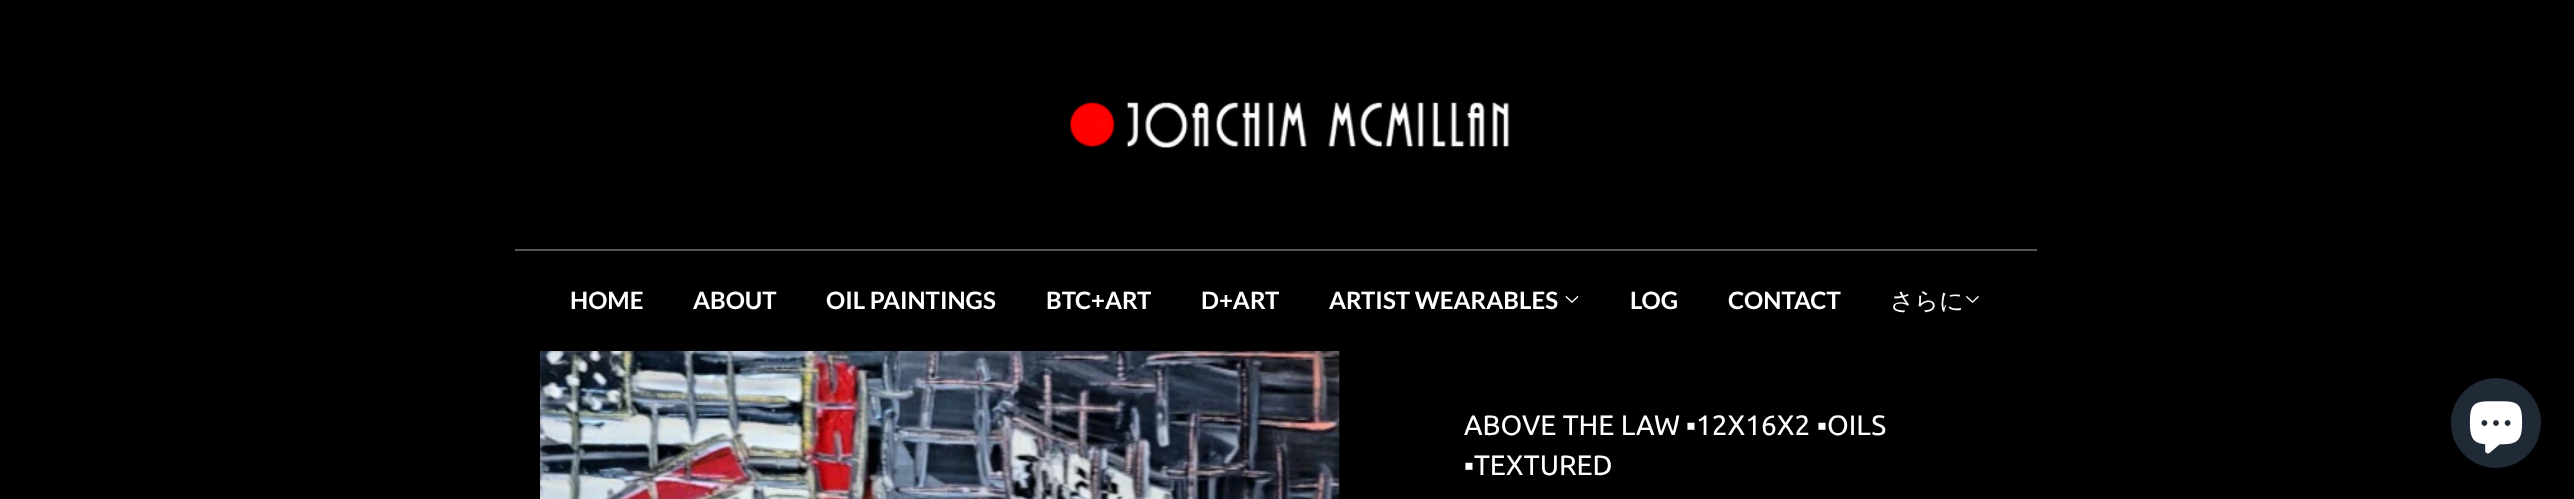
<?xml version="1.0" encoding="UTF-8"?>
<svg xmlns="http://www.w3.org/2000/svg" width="2574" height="499">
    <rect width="100%" height="100%" fill="#000000"/>
    <image x="1070" y="101" width="440" height="47" href="img_01.png"/>
    <rect x="515" y="249" width="1522" height="2" fill="#565555"/>
    <text x="570" y="309" font-family="Lato" font-size="24" font-weight="700" fill="#FFFFFF">HOME</text>
    <text x="693" y="309" font-family="Lato" font-size="24" font-weight="700" fill="#FFFFFF">ABOUT</text>
    <text x="826" y="309" font-family="Lato" font-size="24" font-weight="700" fill="#FFFFFF">OIL PAINTINGS</text>
    <text x="1046" y="309" font-family="Lato" font-size="24" font-weight="700" fill="#FFFFFF">BTC+ART</text>
    <text x="1201" y="309" font-family="Lato" font-size="24" font-weight="700" fill="#FFFFFF">D+ART</text>
    <text x="1329" y="309" font-family="Lato" font-size="24" font-weight="700" fill="#FFFFFF">ARTIST WEARABLES</text>
    <image x="1565" y="296" width="14" height="7" href="img_02.png"/>
    <text x="1630" y="309" font-family="Lato" font-size="24" font-weight="700" fill="#FFFFFF">LOG</text>
    <text x="1728" y="309" font-family="Lato" font-size="24" font-weight="700" fill="#FFFFFF">CONTACT</text>
    <text x="1890" y="309" font-family="WenQuanYi Zen Hei" font-size="24" font-weight="500" fill="#FFFFFF">さらに</text>
    <image x="1966" y="296" width="13" height="7" href="img_03.png"/>
    <image x="540" y="351" width="800" height="148" href="img_04.png"/>
    <text x="1464" y="435" font-family="Ubuntu" font-size="28" fill="#FFFFFF">ABOVE THE LAW</text>
    <text x="1686" y="435" font-family="Liberation Sans" font-size="28" fill="#FFFFFF">▪</text>
    <text x="1696" y="435" font-family="Ubuntu" font-size="28" fill="#FFFFFF">12X16X2</text>
    <text x="1817" y="435" font-family="Liberation Sans" font-size="28" fill="#FFFFFF">▪</text>
    <text x="1827" y="435" font-family="Ubuntu" font-size="28" fill="#FFFFFF">OILS</text>
    <text x="1464" y="475" font-family="Liberation Sans" font-size="28" fill="#FFFFFF">▪</text>
    <text x="1474" y="475" font-family="Ubuntu" font-size="28" fill="#FFFFFF">TEXTURED</text>
    <circle cx="2496" cy="423" r="45" fill="#202A36"/>
    <image x="2469" y="401" width="54" height="53" href="img_05.png"/>
</svg>
